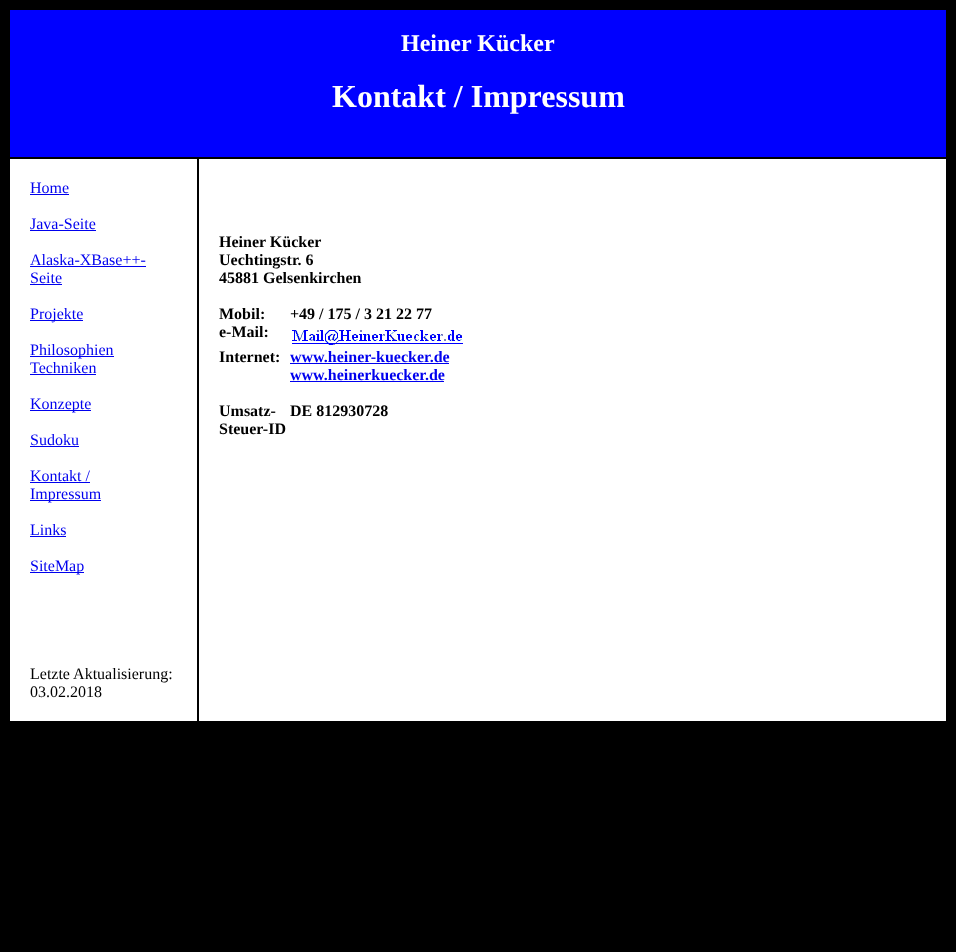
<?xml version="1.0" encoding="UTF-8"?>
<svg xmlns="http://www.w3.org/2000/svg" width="956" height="952">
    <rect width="100%" height="100%" fill="#000000"/>
    <rect x="10" y="10" width="936" height="147" fill="#0000FF"/>
    <text x="401" y="51" font-family="Liberation Serif" font-size="24" font-weight="700" fill="#FFFFFF">Heiner Kücker</text>
    <text x="332" y="107" font-family="Liberation Serif" font-size="32" font-weight="700" fill="#FFFFFF">Kontakt / Impressum</text>
    <rect x="10" y="159" width="187" height="562" fill="#FFFFFF"/>
    <text x="30" y="193" font-family="Liberation Serif" font-size="16" fill="#0000EE">Home</text>
    <rect x="30" y="194" width="39" height="1" fill="#0000EE"/>
    <text x="30" y="229" font-family="Liberation Serif" font-size="16" fill="#0000EE">Java-Seite</text>
    <rect x="30" y="230" width="66" height="1" fill="#0000EE"/>
    <text x="30" y="265" font-family="Liberation Serif" font-size="16" fill="#0000EE">Alaska-XBase++-</text>
    <rect x="30" y="266" width="116" height="1" fill="#0000EE"/>
    <text x="30" y="283" font-family="Liberation Serif" font-size="16" fill="#0000EE">Seite</text>
    <rect x="30" y="284" width="32" height="1" fill="#0000EE"/>
    <rect x="30" y="320" width="53" height="1" fill="#0000EE"/>
    <text x="30" y="319" font-family="Liberation Serif" font-size="16" fill="#0000EE">Projekte</text>
    <rect x="30" y="356" width="84" height="1" fill="#0000EE"/>
    <text font-family="Liberation Serif" font-size="16" fill="#0000EE">
        <tspan x="30" y="355">Philosophien</tspan>
        <tspan x="30" y="373">Techniken</tspan>
    </text>
    <rect x="30" y="374" width="66" height="1" fill="#0000EE"/>
    <rect x="30" y="410" width="61" height="1" fill="#0000EE"/>
    <text x="30" y="409" font-family="Liberation Serif" font-size="16" fill="#0000EE">Konzepte</text>
    <text x="30" y="445" font-family="Liberation Serif" font-size="16" fill="#0000EE">Sudoku</text>
    <rect x="30" y="446" width="49" height="1" fill="#0000EE"/>
    <text x="30" y="481" font-family="Liberation Serif" font-size="16" fill="#0000EE">Kontakt /</text>
    <rect x="30" y="482" width="60" height="1" fill="#0000EE"/>
    <rect x="30" y="500" width="71" height="1" fill="#0000EE"/>
    <text x="30" y="499" font-family="Liberation Serif" font-size="16" fill="#0000EE">Impressum</text>
    <text x="30" y="535" font-family="Liberation Serif" font-size="16" fill="#0000EE">Links</text>
    <rect x="30" y="536" width="36" height="1" fill="#0000EE"/>
    <rect x="30" y="572" width="54" height="1" fill="#0000EE"/>
    <text x="30" y="571" font-family="Liberation Serif" font-size="16" fill="#0000EE">SiteMap</text>
    <text font-family="Liberation Serif" font-size="16" fill="#000000">
        <tspan x="30" y="679">Letzte Aktualisierung:</tspan>
        <tspan x="30" y="697">03.02.2018</tspan>
    </text>
    <rect x="199" y="159" width="747" height="562" fill="#FFFFFF"/>
    <text font-family="Liberation Serif" font-size="16" font-weight="700" fill="#000000">
        <tspan x="219" y="247">Heiner Kücker</tspan>
        <tspan x="219" y="265">Uechtingstr. 6</tspan>
        <tspan x="219" y="283">45881 Gelsenkirchen</tspan>
    </text>
    <text x="219" y="319" font-family="Liberation Serif" font-size="16" font-weight="700" fill="#000000">Mobil:</text>
    <text x="290" y="319" font-family="Liberation Serif" font-size="16" font-weight="700" fill="#000000">+49 / 175 / 3 21 22 77</text>
    <text x="219" y="337" font-family="Liberation Serif" font-size="16" font-weight="700" fill="#000000">e-Mail:</text>
    <image x="292" y="330" width="171" height="15" href="img_01.png"/>
    <text x="219" y="362" font-family="Liberation Serif" font-size="16" font-weight="700" fill="#000000">Internet:</text>
    <text x="290" y="362" font-family="Liberation Serif" font-size="16" font-weight="700" fill="#0000EE">www.heiner-kuecker.de</text>
    <rect x="290" y="363" width="159" height="1" fill="#0000EE"/>
    <text x="290" y="380" font-family="Liberation Serif" font-size="16" font-weight="700" fill="#0000EE">www.heinerkuecker.de</text>
    <rect x="290" y="381" width="154" height="1" fill="#0000EE"/>
    <text x="219" y="416" font-family="Liberation Serif" font-size="16" font-weight="700" fill="#000000">Umsatz-</text>
    <text x="290" y="416" font-family="Liberation Serif" font-size="16" font-weight="700" fill="#000000">DE 812930728</text>
    <text x="219" y="434" font-family="Liberation Serif" font-size="16" font-weight="700" fill="#000000">Steuer-ID</text>
</svg>
